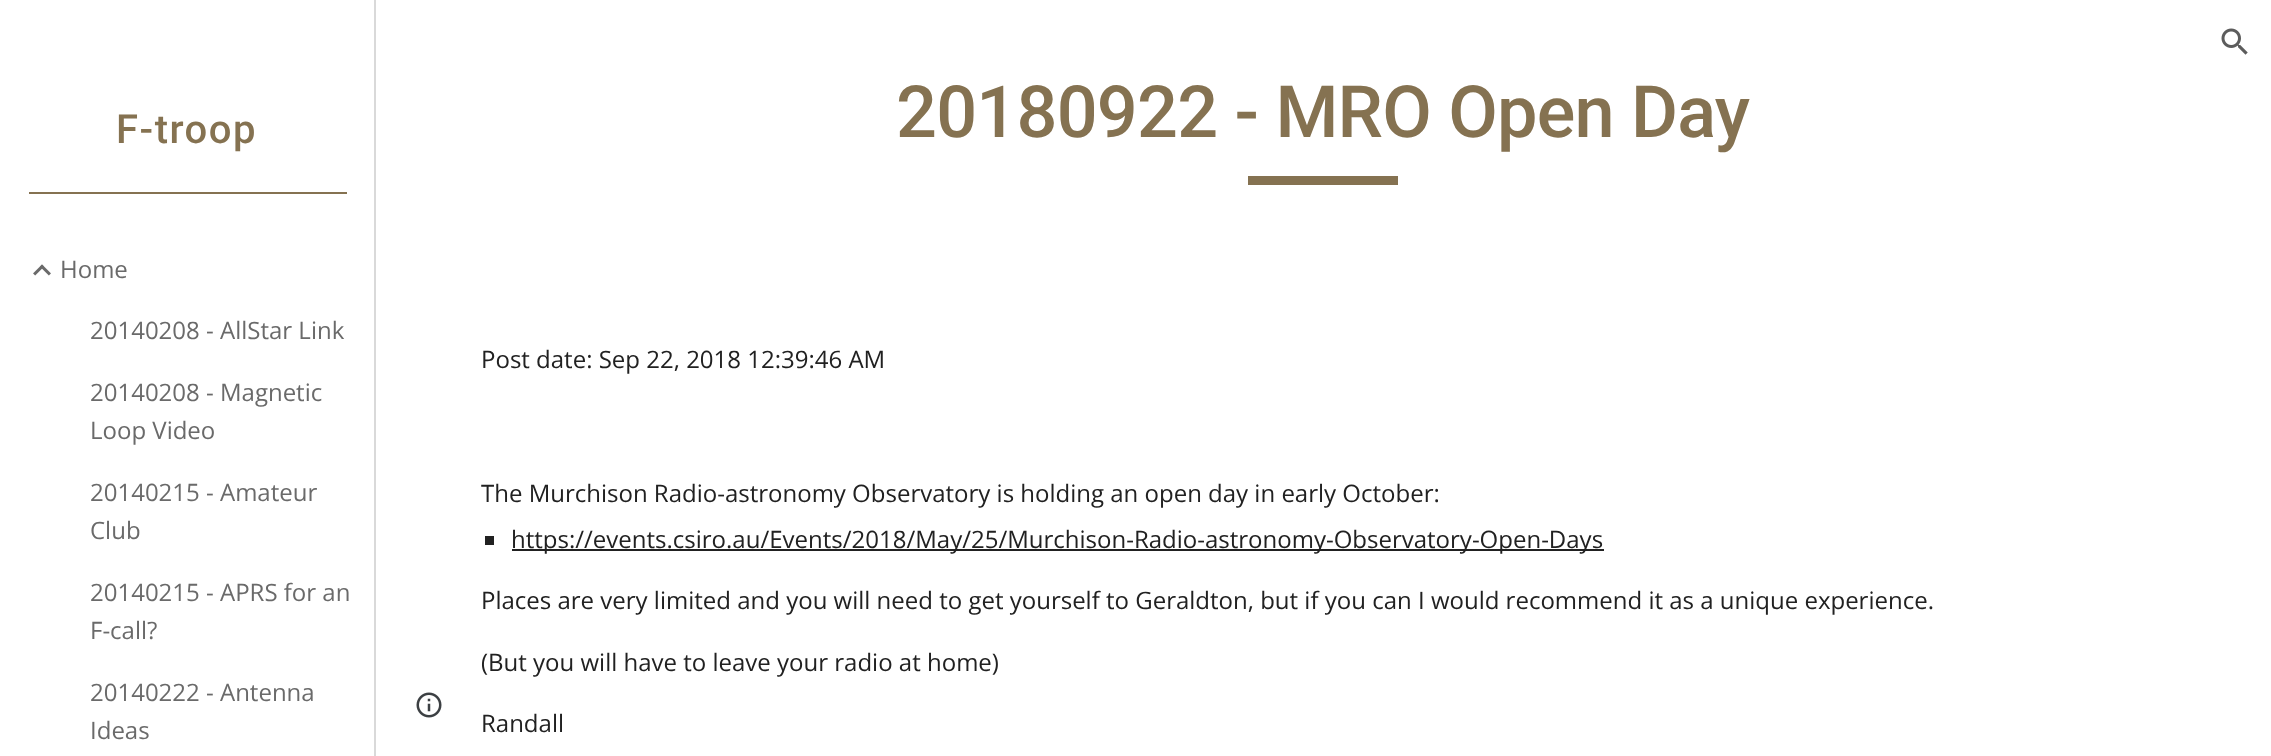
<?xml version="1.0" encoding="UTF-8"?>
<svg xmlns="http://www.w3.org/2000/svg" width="2271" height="756">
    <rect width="100%" height="100%" fill="#FFFFFF"/>
    <image x="2221" y="28" width="27" height="27" href="img_01.png"/>
    <rect x="374" y="0" width="2" height="756" fill="#D9D9D9"/>
    <text x="116" y="143" font-family="Roboto" font-size="40" font-weight="500" letter-spacing="1.5" fill="#857251">F-troop</text>
    <rect x="29" y="192" width="318" height="2" fill="#857251"/>
    <image x="33" y="264" width="18" height="12" href="img_02.png"/>
    <text x="60" y="278" font-family="Open Sans" font-size="24" fill="#6A6A6A">Home</text>
    <text x="90" y="339" font-family="Open Sans" font-size="24" fill="#6A6A6A">20140208 - AllStar Link</text>
    <text font-family="Open Sans" font-size="24" fill="#6A6A6A">
        <tspan x="90" y="401">20140208 - Magnetic</tspan>
        <tspan x="90" y="439">Loop Video</tspan>
    </text>
    <text font-family="Open Sans" font-size="24" fill="#6A6A6A">
        <tspan x="90" y="501">20140215 - Amateur</tspan>
        <tspan x="90" y="539">Club</tspan>
    </text>
    <text font-family="Open Sans" font-size="24" fill="#6A6A6A">
        <tspan x="90" y="601">20140215 - APRS for an</tspan>
        <tspan x="90" y="639">F-call?</tspan>
    </text>
    <text font-family="Open Sans" font-size="24" fill="#6A6A6A">
        <tspan x="90" y="701">20140222 - Antenna</tspan>
        <tspan x="90" y="739">Ideas</tspan>
    </text>
    <image x="416" y="692" width="26" height="26" href="img_03.png"/>
    <text x="896" y="137" font-family="Roboto" font-size="72" font-weight="500" letter-spacing="-0.75" fill="#857251">20180922 - MRO Open Day</text>
    <rect x="1248" y="176" width="150" height="9" fill="#857251"/>
    <text x="481" y="368" font-family="Open Sans" font-size="24" fill="#212121">Post date: Sep 22, 2018 12:39:46 AM</text>
    <text x="481" y="502" font-family="Open Sans" font-size="24" fill="#212121">The Murchison Radio-astronomy Observatory is holding an open day in early October:</text>
    <rect x="485" y="536" width="9" height="9" fill="#212121"/>
    <rect x="512" y="549" width="1092" height="2" fill="#212121"/>
    <text x="511" y="548" font-family="Open Sans" font-size="24" fill="#212121">https://events.csiro.au/Events/2018/May/25/Murchison-Radio-astronomy-Observatory-Open-Days</text>
    <text x="481" y="609" font-family="Open Sans" font-size="24" fill="#212121">Places are very limited and you will need to get yourself to Geraldton, but if you can I would recommend it as a unique experience.</text>
    <text x="481" y="671" font-family="Open Sans" font-size="24" fill="#212121">(But you will have to leave your radio at home)</text>
    <text x="481" y="732" font-family="Open Sans" font-size="24" fill="#212121">Randall</text>
</svg>
